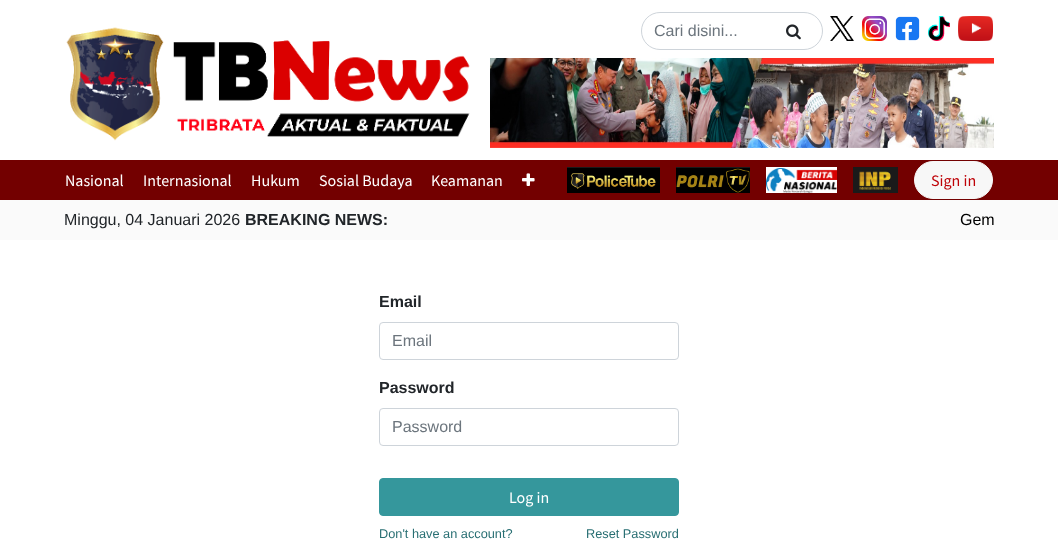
<?xml version="1.0" encoding="UTF-8"?>
<svg xmlns="http://www.w3.org/2000/svg" width="1058" height="552">
    <rect width="100%" height="100%" fill="#FFFFFF"/>
    <image x="66" y="27" width="404" height="114" href="img_01.png"/>
    <rect x="641.5" y="12.5" width="181" height="37" rx="18.5" fill="none" stroke="#CED4DA"/>
    <text x="654" y="36" font-family="Liberation Sans" font-size="16" fill="#6C757D">Cari disini...</text>
    <image x="786" y="24" width="15" height="16" href="img_02.png"/>
    <image x="830" y="16" width="24" height="25" href="img_03.png"/>
    <image x="862" y="16" width="25" height="25" href="img_04.png"/>
    <image x="895" y="16" width="25" height="25" href="img_05.png"/>
    <image x="928" y="16" width="22" height="25" href="img_06.png"/>
    <image x="958" y="16" width="35" height="25" href="img_07.png"/>
    <image x="490" y="58" width="504" height="90" href="img_08.png"/>
    <rect x="0" y="160" width="1058" height="40" fill="#730000"/>
    <text x="65" y="186" font-family="Source Sans Pro" font-size="16" fill="#FFFFFF">Nasional</text>
    <text x="143" y="186" font-family="Source Sans Pro" font-size="16" fill="#FFFFFF">Internasional</text>
    <text x="251" y="186" font-family="Source Sans Pro" font-size="16" fill="#FFFFFF">Hukum</text>
    <text x="319" y="186" font-family="Source Sans Pro" font-size="16" fill="#FFFFFF">Sosial Budaya</text>
    <text x="431" y="186" font-family="Source Sans Pro" font-size="16" fill="#FFFFFF">Keamanan</text>
    <image x="522" y="173" width="13" height="13" href="img_09.png"/>
    <rect x="567" y="167" width="93" height="1" fill="#1A1A1A"/>
    <image x="567" y="168" width="93" height="25" href="img_10.png"/>
    <rect x="676" y="167" width="74" height="1" fill="#1A1A1A"/>
    <image x="676" y="168" width="74" height="25" href="img_11.png"/>
    <rect x="766" y="167" width="71" height="26" fill="#FFFFFF"/>
    <image x="766" y="168" width="71" height="25" href="img_12.png"/>
    <rect x="853" y="167" width="45" height="26" fill="#1A1A1A"/>
    <image x="859" y="171" width="32" height="19" href="img_13.png"/>
    <rect x="914.5" y="161.5" width="78" height="37" rx="18.5" fill="#F7F7F7" stroke="#F7F7F7"/>
    <text x="931" y="186" font-family="Source Sans Pro" font-size="16" fill="#BE0106">Sign in</text>
    <rect x="0" y="200" width="1058" height="40" fill="#FAFAFA"/>
    <text x="64" y="225" font-family="Liberation Sans" font-size="16" fill="#212529">Minggu, 04 Januari 2026</text>
    <text x="245" y="225" font-family="Liberation Sans" font-size="16" font-weight="700" fill="#212529">BREAKING NEWS:</text>
    <text x="960" y="225" font-family="Liberation Sans" font-size="16" fill="#000000">Gem</text>
    <text x="379" y="307" font-family="Liberation Sans" font-size="16" font-weight="700" fill="#212529">Email</text>
    <rect x="379.5" y="322.5" width="299" height="37" rx="3.5" fill="none" stroke="#CED4DA"/>
    <text x="392" y="346" font-family="Liberation Sans" font-size="16" fill="#6C757D">Email</text>
    <text x="379" y="393" font-family="Liberation Sans" font-size="16" font-weight="700" fill="#212529">Password</text>
    <rect x="379.5" y="408.5" width="299" height="37" rx="3.5" fill="none" stroke="#CED4DA"/>
    <text x="392" y="432" font-family="Liberation Sans" font-size="16" fill="#6C757D">Password</text>
    <rect x="379.5" y="478.5" width="299" height="37" rx="3.5" fill="#35979C" stroke="#35979C"/>
    <text x="509" y="503" font-family="Source Sans Pro" font-size="16" fill="#FFFFFF">Log in</text>
    <text x="379" y="538" font-family="Liberation Sans" font-size="12.75" fill="#276E72">Don't have an account?</text>
    <text x="586" y="538" font-family="Liberation Sans" font-size="12.75" fill="#276E72">Reset Password</text>
</svg>
